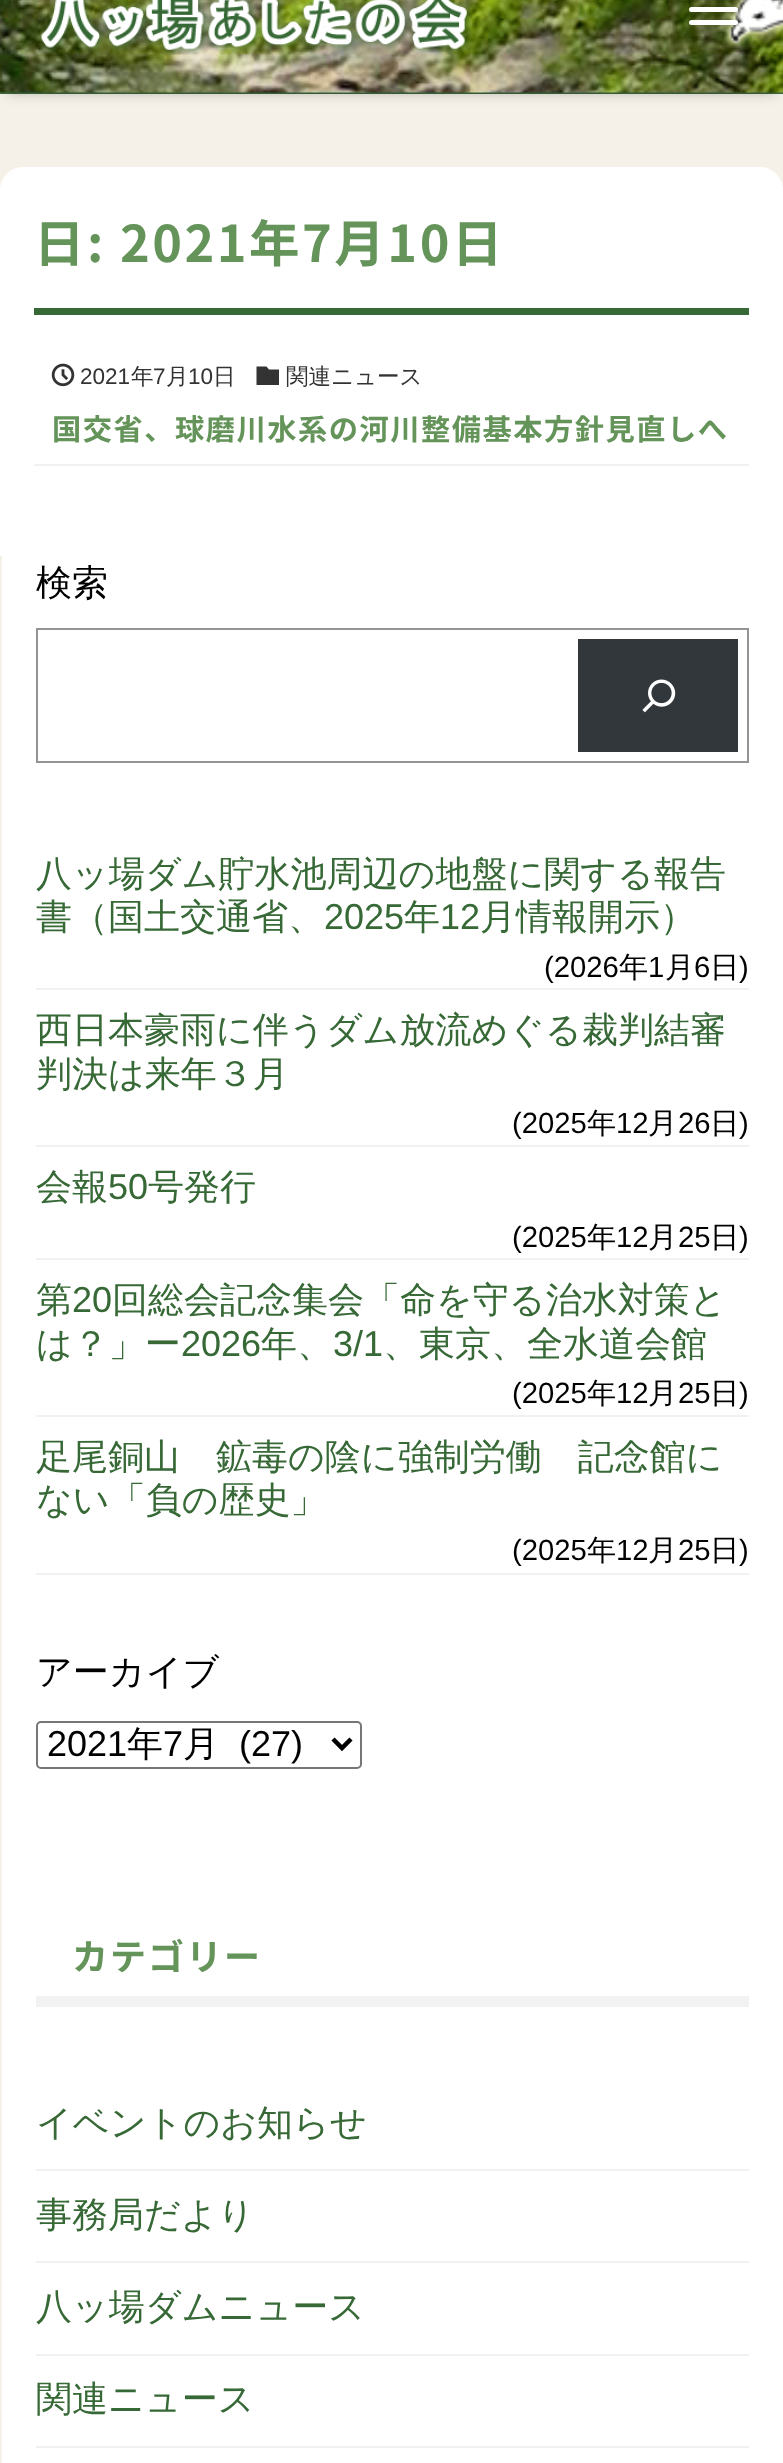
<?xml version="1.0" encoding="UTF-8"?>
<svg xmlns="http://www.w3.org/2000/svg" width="783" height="2463">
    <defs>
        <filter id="blur1" x="-50%" y="-200%" width="200%" height="500%"><feGaussianBlur stdDeviation="7"/></filter>
    </defs>
    <rect width="100%" height="100%" fill="#F5F1E8"/>
    <rect x="0" y="92" width="783" height="2" fill="#3D6A3D"/>
    <rect x="7" y="-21" width="769" height="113" fill="#000000" fill-opacity="0.3" filter="url(#blur1)"/>
    <image x="0" y="0" width="783" height="93" href="img_01.png"/>
    <image x="39" y="0" width="433" height="55" href="img_02.png"/>
    <rect x="689" y="7" width="49" height="5" rx="2.5" fill="#FFFFFF"/>
    <rect x="689" y="20" width="49" height="5" rx="2.5" fill="#FFFFFF"/>
    <rect x="0" y="167" width="783" height="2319" rx="23" fill="#FFFFFF"/>
    <rect x="34" y="308" width="715" height="7" fill="#376936"/>
    <text x="34" y="262" font-family="Noto Sans JP" font-size="50.5" font-weight="700" letter-spacing="2.5" fill="#649459">日: 2021年7月10日</text>
    <rect x="34" y="464" width="715" height="2" fill="#F1F1F1"/>
    <image x="51" y="363" width="24" height="24" href="img_03.png"/>
    <text x="80" y="384" font-family="Liberation Sans" font-size="22.5" fill="#333333">2021</text>
    <text x="131" y="384" font-family="WenQuanYi Zen Hei" font-size="22.5" font-weight="500" fill="#333333">年</text>
    <text x="153" y="384" font-family="Liberation Sans" font-size="22.5" fill="#333333">7</text>
    <text x="166" y="384" font-family="WenQuanYi Zen Hei" font-size="22.5" font-weight="500" fill="#333333">月</text>
    <text x="188" y="384" font-family="Liberation Sans" font-size="22.5" fill="#333333">10</text>
    <text x="213" y="384" font-family="WenQuanYi Zen Hei" font-size="22.5" font-weight="500" fill="#333333">日</text>
    <text x="286" y="384" font-family="WenQuanYi Zen Hei" font-size="22.5" font-weight="500" fill="#333333">関連ニュース</text>
    <path d="M 266.5 366.5 L 269 369.5 H 279 V 385 H 256.5 V 366.5 Z" fill="#333333"/>
    <text x="52" y="440" font-family="Noto Sans JP" font-size="29.25" font-weight="700" letter-spacing="1.5" fill="#649459">国交省、球磨川水系の河川整備基本方針見直しへ</text>
    <rect x="0" y="556" width="2" height="1907" fill="#F5F1E8"/>
    <text x="36" y="595" font-family="WenQuanYi Zen Hei" font-size="36" font-weight="500" fill="#000000">検索</text>
    <rect x="37" y="629" width="711" height="133" fill="none" stroke="#949494" stroke-width="2"/>
    <rect x="578" y="639" width="160" height="113" fill="#32373C"/>
    <image x="642" y="679" width="34" height="34" href="img_04.png"/>
    <rect x="36" y="988" width="713" height="2" fill="#F1F1F1"/>
    <text font-family="WenQuanYi Zen Hei" font-size="36" font-weight="500" fill="#376936">
        <tspan x="36" y="886">八ッ場ダム貯水池周辺の地盤に関する報告</tspan>
        <tspan x="36" y="929">書（国土交通省、</tspan>
    </text>
    <text x="324" y="929" font-family="Liberation Sans" font-size="36" fill="#376936">2025</text>
    <text x="404" y="929" font-family="WenQuanYi Zen Hei" font-size="36" font-weight="500" fill="#376936">年</text>
    <text x="440" y="929" font-family="Liberation Sans" font-size="36" fill="#376936">12</text>
    <text x="480" y="929" font-family="WenQuanYi Zen Hei" font-size="36" font-weight="500" fill="#376936">月情報開示）</text>
    <text x="544" y="977" font-family="Liberation Sans" font-size="29.25" fill="#000000">(2026</text>
    <text x="619" y="977" font-family="WenQuanYi Zen Hei" font-size="29.25" font-weight="500" fill="#000000">年</text>
    <text x="648" y="977" font-family="Liberation Sans" font-size="29.25" fill="#000000">1</text>
    <text x="665" y="977" font-family="WenQuanYi Zen Hei" font-size="29.25" font-weight="500" fill="#000000">月</text>
    <text x="694" y="977" font-family="Liberation Sans" font-size="29.25" fill="#000000">6</text>
    <text x="710" y="977" font-family="WenQuanYi Zen Hei" font-size="29.25" font-weight="500" fill="#000000">日</text>
    <text x="739" y="977" font-family="Liberation Sans" font-size="29.25" fill="#000000">)</text>
    <rect x="36" y="1145" width="713" height="2" fill="#F1F1F1"/>
    <text font-family="WenQuanYi Zen Hei" font-size="36" font-weight="500" fill="#376936">
        <tspan x="36" y="1042">西日本豪雨に伴うダム放流めぐる裁判結審</tspan>
        <tspan x="36" y="1086">判決は来年３月</tspan>
    </text>
    <text x="512" y="1133" font-family="Liberation Sans" font-size="29.25" fill="#000000">(2025</text>
    <text x="587" y="1133" font-family="WenQuanYi Zen Hei" font-size="29.25" font-weight="500" fill="#000000">年</text>
    <text x="616" y="1133" font-family="Liberation Sans" font-size="29.25" fill="#000000">12</text>
    <text x="648" y="1133" font-family="WenQuanYi Zen Hei" font-size="29.25" font-weight="500" fill="#000000">月</text>
    <text x="678" y="1133" font-family="Liberation Sans" font-size="29.25" fill="#000000">26</text>
    <text x="710" y="1133" font-family="WenQuanYi Zen Hei" font-size="29.25" font-weight="500" fill="#000000">日</text>
    <text x="739" y="1133" font-family="Liberation Sans" font-size="29.25" fill="#000000">)</text>
    <rect x="36" y="1258" width="713" height="2" fill="#F1F1F1"/>
    <text x="36" y="1199" font-family="WenQuanYi Zen Hei" font-size="36" font-weight="500" fill="#376936">会報</text>
    <text x="108" y="1199" font-family="Liberation Sans" font-size="36" fill="#376936">50</text>
    <text x="148" y="1199" font-family="WenQuanYi Zen Hei" font-size="36" font-weight="500" fill="#376936">号発行</text>
    <text x="512" y="1247" font-family="Liberation Sans" font-size="29.25" fill="#000000">(2025</text>
    <text x="587" y="1247" font-family="WenQuanYi Zen Hei" font-size="29.25" font-weight="500" fill="#000000">年</text>
    <text x="616" y="1247" font-family="Liberation Sans" font-size="29.25" fill="#000000">12</text>
    <text x="648" y="1247" font-family="WenQuanYi Zen Hei" font-size="29.25" font-weight="500" fill="#000000">月</text>
    <text x="678" y="1247" font-family="Liberation Sans" font-size="29.25" fill="#000000">25</text>
    <text x="710" y="1247" font-family="WenQuanYi Zen Hei" font-size="29.25" font-weight="500" fill="#000000">日</text>
    <text x="739" y="1247" font-family="Liberation Sans" font-size="29.25" fill="#000000">)</text>
    <rect x="36" y="1415" width="713" height="2" fill="#F1F1F1"/>
    <text x="36" y="1312" font-family="WenQuanYi Zen Hei" font-size="36" font-weight="500" fill="#376936">第</text>
    <text x="72" y="1312" font-family="Liberation Sans" font-size="36" fill="#376936">20</text>
    <text x="112" y="1312" font-family="WenQuanYi Zen Hei" font-size="36" font-weight="500" fill="#376936">回総会記念集会「命を守る治水対策と</text>
    <text x="36" y="1356" font-family="WenQuanYi Zen Hei" font-size="36" font-weight="500" fill="#376936">は？」ー</text>
    <text x="181" y="1356" font-family="Liberation Sans" font-size="36" fill="#376936">2026</text>
    <text x="261" y="1356" font-family="WenQuanYi Zen Hei" font-size="36" font-weight="500" fill="#376936">年、</text>
    <text x="333" y="1356" font-family="Liberation Sans" font-size="36" fill="#376936">3/1</text>
    <text x="383" y="1356" font-family="WenQuanYi Zen Hei" font-size="36" font-weight="500" fill="#376936">、東京、全水道会館</text>
    <text x="512" y="1403" font-family="Liberation Sans" font-size="29.25" fill="#000000">(2025</text>
    <text x="587" y="1403" font-family="WenQuanYi Zen Hei" font-size="29.25" font-weight="500" fill="#000000">年</text>
    <text x="616" y="1403" font-family="Liberation Sans" font-size="29.25" fill="#000000">12</text>
    <text x="648" y="1403" font-family="WenQuanYi Zen Hei" font-size="29.25" font-weight="500" fill="#000000">月</text>
    <text x="678" y="1403" font-family="Liberation Sans" font-size="29.25" fill="#000000">25</text>
    <text x="710" y="1403" font-family="WenQuanYi Zen Hei" font-size="29.25" font-weight="500" fill="#000000">日</text>
    <text x="739" y="1403" font-family="Liberation Sans" font-size="29.25" fill="#000000">)</text>
    <rect x="36" y="1573" width="713" height="2" fill="#F1F1F1"/>
    <text font-family="WenQuanYi Zen Hei" font-size="36" font-weight="500" fill="#376936">
        <tspan x="36" y="1469">足尾銅山　鉱毒の陰に強制労働　記念館に</tspan>
        <tspan x="36" y="1512">ない「負の歴史」</tspan>
    </text>
    <text x="512" y="1560" font-family="Liberation Sans" font-size="29.25" fill="#000000">(2025</text>
    <text x="587" y="1560" font-family="WenQuanYi Zen Hei" font-size="29.25" font-weight="500" fill="#000000">年</text>
    <text x="616" y="1560" font-family="Liberation Sans" font-size="29.25" fill="#000000">12</text>
    <text x="648" y="1560" font-family="WenQuanYi Zen Hei" font-size="29.25" font-weight="500" fill="#000000">月</text>
    <text x="678" y="1560" font-family="Liberation Sans" font-size="29.25" fill="#000000">25</text>
    <text x="710" y="1560" font-family="WenQuanYi Zen Hei" font-size="29.25" font-weight="500" fill="#000000">日</text>
    <text x="739" y="1560" font-family="Liberation Sans" font-size="29.25" fill="#000000">)</text>
    <text x="36" y="1684" font-family="WenQuanYi Zen Hei" font-size="36" font-weight="500" fill="#000000">アーカイブ</text>
    <rect x="37" y="1722" width="324" height="46" rx="4" fill="none" stroke="#767676" stroke-width="2"/>
    <path d="M 333 1739 L 342 1748 L 351 1739" fill="none" stroke="#000000" stroke-width="4.5"/>
    <text x="47" y="1756" font-family="Liberation Sans" font-size="36" fill="#000000">2021</text>
    <text x="127" y="1756" font-family="WenQuanYi Zen Hei" font-size="36" font-weight="500" fill="#000000">年</text>
    <text x="163" y="1756" font-family="Liberation Sans" font-size="36" fill="#000000">7</text>
    <text x="183" y="1756" font-family="WenQuanYi Zen Hei" font-size="36" font-weight="500" fill="#000000">月</text>
    <text x="239" y="1756" font-family="Liberation Sans" font-size="36" fill="#000000">(27)</text>
    <rect x="36" y="1996" width="713" height="11" fill="#F2F2F2"/>
    <text x="72" y="1970" font-family="Noto Sans JP" font-size="36" font-weight="700" letter-spacing="2" fill="#649459">カテゴリー</text>
    <rect x="36" y="2169" width="713" height="2" fill="#F1F1F1"/>
    <text x="36" y="2135" font-family="WenQuanYi Zen Hei" font-size="36" font-weight="500" fill="#376936">イベントのお知らせ</text>
    <rect x="36" y="2261" width="713" height="2" fill="#F1F1F1"/>
    <text x="36" y="2227" font-family="WenQuanYi Zen Hei" font-size="36" font-weight="500" fill="#376936">事務局だより</text>
    <rect x="36" y="2354" width="713" height="2" fill="#F1F1F1"/>
    <text x="36" y="2319" font-family="WenQuanYi Zen Hei" font-size="36" font-weight="500" fill="#376936">八ッ場ダムニュース</text>
    <rect x="36" y="2446" width="713" height="2" fill="#F1F1F1"/>
    <text x="36" y="2411" font-family="WenQuanYi Zen Hei" font-size="36" font-weight="500" fill="#376936">関連ニュース</text>
</svg>
